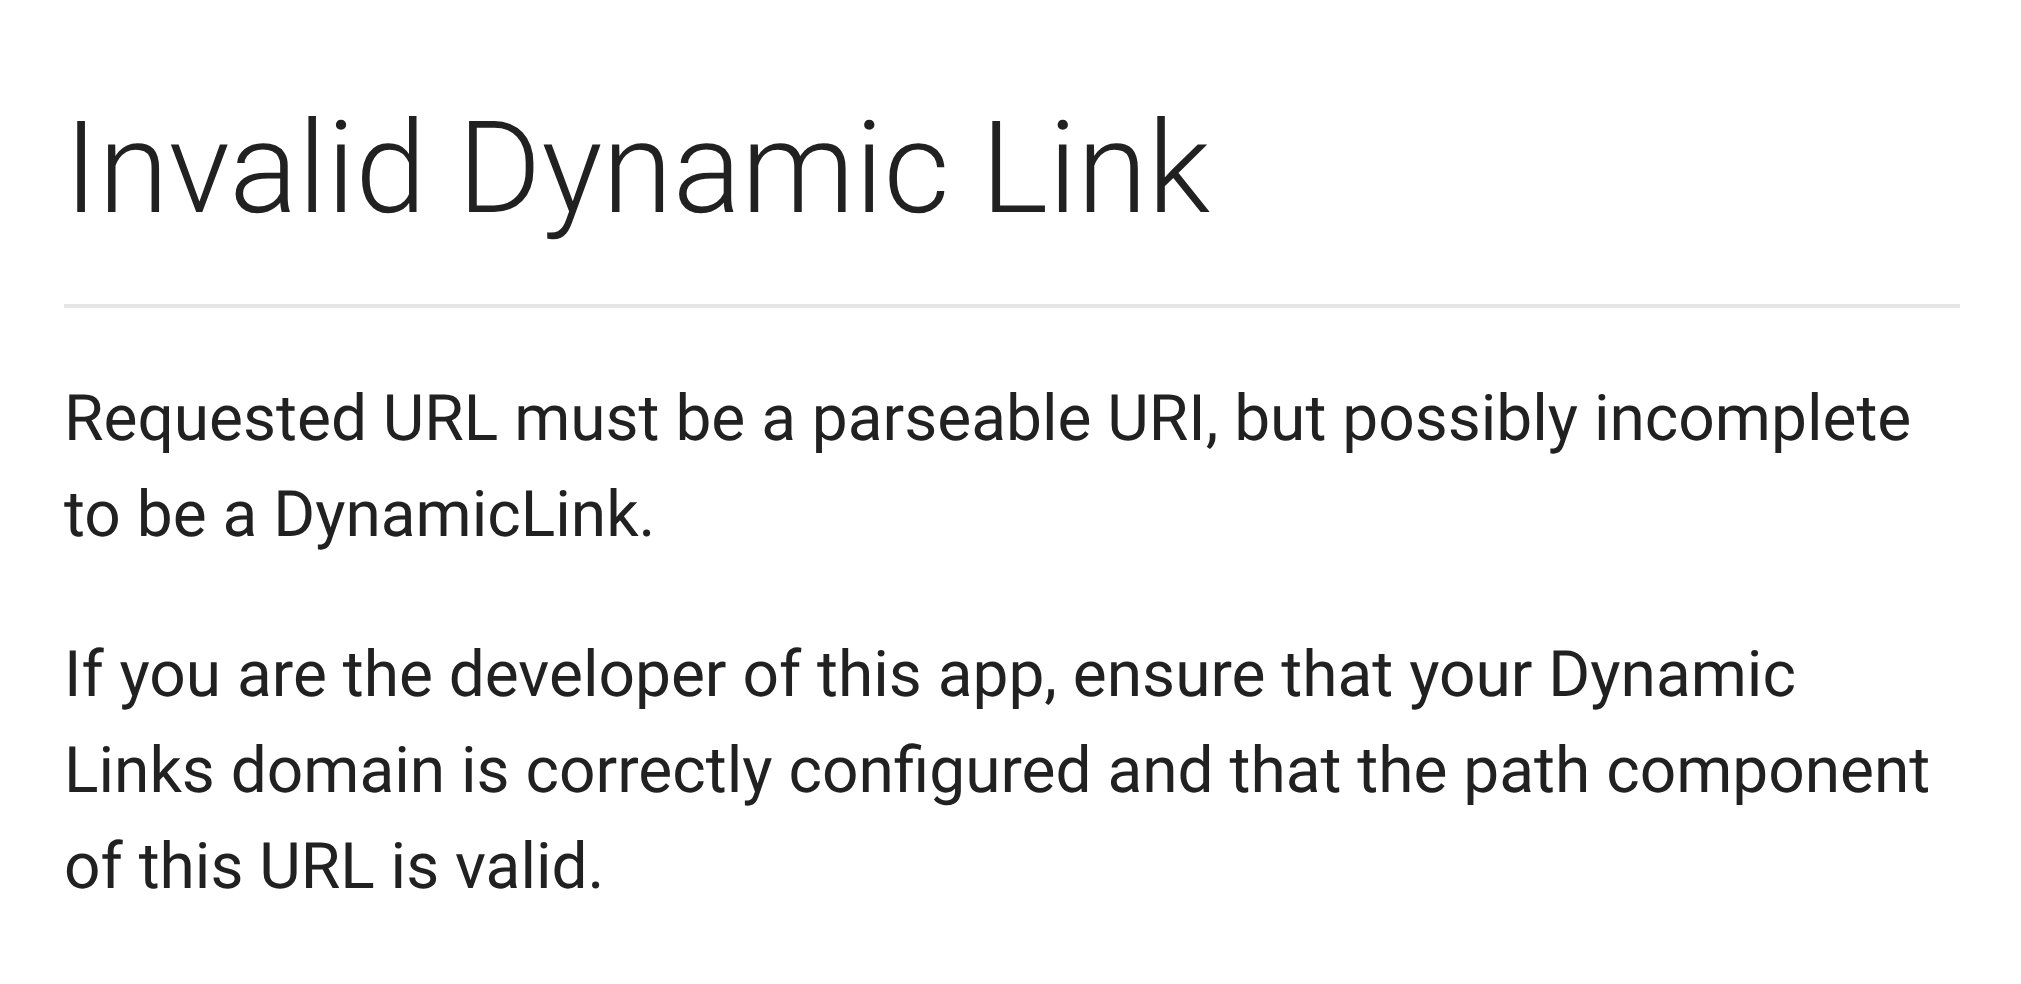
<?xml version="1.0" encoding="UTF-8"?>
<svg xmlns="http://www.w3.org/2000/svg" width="2021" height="984">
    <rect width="100%" height="100%" fill="#FFFFFF"/>
    <rect x="64" y="304" width="1896" height="4" fill="#E6E6E6"/>
    <text x="64" y="212" font-family="Roboto" font-size="128" font-weight="300" fill="#212121">Invalid Dynamic Link</text>
    <text font-family="Roboto" font-size="64" fill="#212121">
        <tspan x="64" y="440">Requested URL must be a parseable URI, but possibly incomplete</tspan>
        <tspan x="64" y="536">to be a DynamicLink.</tspan>
    </text>
    <text font-family="Roboto" font-size="64" fill="#212121">
        <tspan x="64" y="696">If you are the developer of this app, ensure that your Dynamic</tspan>
        <tspan x="64" y="792">Links domain is correctly configured and that the path component</tspan>
        <tspan x="64" y="888">of this URL is valid.</tspan>
    </text>
</svg>
